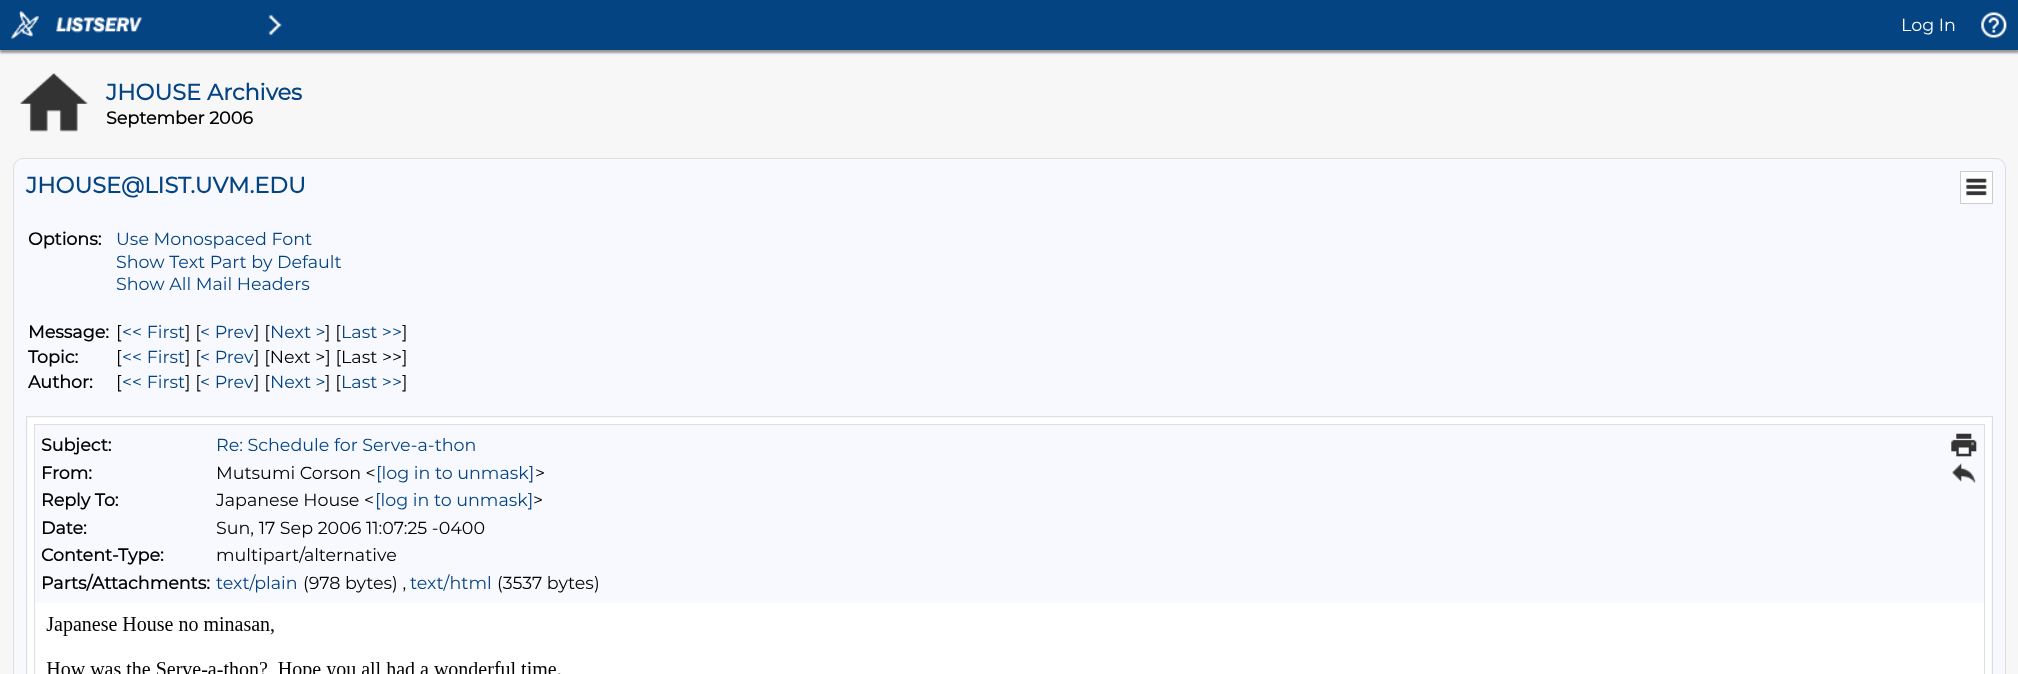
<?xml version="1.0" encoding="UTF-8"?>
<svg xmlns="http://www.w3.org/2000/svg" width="2018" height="674">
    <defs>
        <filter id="blur1" x="-50%" y="-200%" width="200%" height="500%"><feGaussianBlur stdDeviation="1"/></filter>
    </defs>
    <rect width="100%" height="100%" fill="#F7F7F7"/>
    <rect x="0" y="3" width="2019" height="50" fill="#999999" filter="url(#blur1)"/>
    <rect x="0" y="0" width="2018" height="50" fill="#054483"/>
    <image x="11" y="11" width="28" height="28" href="img_01.png"/>
    <image x="56" y="17" width="87" height="16" href="img_02.png"/>
    <image x="268" y="14" width="14" height="22" href="img_03.png"/>
    <text x="1901" y="31" font-family="Montserrat" font-size="17.5" font-weight="100" fill="#FFFFFF">Log In</text>
    <image x="1981" y="12" width="26" height="26" href="img_04.png"/>
    <image x="20" y="73" width="68" height="59" href="img_05.png"/>
    <text x="106" y="100" font-family="Montserrat" font-size="22.5" font-weight="700" fill="#054483">JHOUSE Archives</text>
    <text x="106" y="124" font-family="Montserrat" font-size="17.5" font-weight="700" fill="#000000">September 2006</text>
    <rect x="13.5" y="158.5" width="1992" height="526" rx="9.5" fill="#F7F9FE" stroke="#DEDEDE"/>
    <text x="26" y="193" font-family="Montserrat" font-size="22.5" font-weight="700" fill="#054483">JHOUSE@LIST.UVM.EDU</text>
    <rect x="1960.5" y="171.5" width="32" height="32" fill="#FFFFFF" stroke="#CCCCCC"/>
    <image x="1966" y="178" width="21" height="18" href="img_06.png"/>
    <text x="28" y="245" font-family="Montserrat" font-size="17.5" font-weight="700" fill="#000000">Options:</text>
    <text font-family="Montserrat" font-size="17.5" font-weight="100" fill="#054483">
        <tspan x="116" y="245">Use Monospaced Font</tspan>
        <tspan x="116" y="268">Show Text Part by Default</tspan>
        <tspan x="116" y="290">Show All Mail Headers</tspan>
    </text>
    <text x="28" y="338" font-family="Montserrat" font-size="17.5" font-weight="700" fill="#000000">Message:</text>
    <text x="116" y="338" font-family="Montserrat" font-size="17.5" font-weight="100" fill="#000000">[</text>
    <text x="122" y="338" font-family="Montserrat" font-size="17.5" font-weight="100" fill="#054483">&lt;&lt; First</text>
    <text x="185" y="338" font-family="Montserrat" font-size="17.5" font-weight="100" fill="#000000">] [</text>
    <text x="200" y="338" font-family="Montserrat" font-size="17.5" font-weight="100" fill="#054483">&lt; Prev</text>
    <text x="254" y="338" font-family="Montserrat" font-size="17.5" font-weight="100" fill="#000000">] [</text>
    <text x="270" y="338" font-family="Montserrat" font-size="17.5" font-weight="100" fill="#054483">Next &gt;</text>
    <text x="325" y="338" font-family="Montserrat" font-size="17.5" font-weight="100" fill="#000000">] [</text>
    <text x="341" y="338" font-family="Montserrat" font-size="17.5" font-weight="100" fill="#054483">Last &gt;&gt;</text>
    <text x="402" y="338" font-family="Montserrat" font-size="17.5" font-weight="100" fill="#000000">]</text>
    <text x="28" y="363" font-family="Montserrat" font-size="17.5" font-weight="700" fill="#000000">Topic:</text>
    <text x="116" y="363" font-family="Montserrat" font-size="17.5" font-weight="100" fill="#000000">[</text>
    <text x="122" y="363" font-family="Montserrat" font-size="17.5" font-weight="100" fill="#054483">&lt;&lt; First</text>
    <text x="185" y="363" font-family="Montserrat" font-size="17.5" font-weight="100" fill="#000000">] [</text>
    <text x="200" y="363" font-family="Montserrat" font-size="17.5" font-weight="100" fill="#054483">&lt; Prev</text>
    <text x="254" y="363" font-family="Montserrat" font-size="17.5" font-weight="100" fill="#000000">] [Next &gt;] [Last &gt;&gt;]</text>
    <text x="28" y="388" font-family="Montserrat" font-size="17.5" font-weight="700" fill="#000000">Author:</text>
    <text x="116" y="388" font-family="Montserrat" font-size="17.5" font-weight="100" fill="#000000">[</text>
    <text x="122" y="388" font-family="Montserrat" font-size="17.5" font-weight="100" fill="#054483">&lt;&lt; First</text>
    <text x="185" y="388" font-family="Montserrat" font-size="17.5" font-weight="100" fill="#000000">] [</text>
    <text x="200" y="388" font-family="Montserrat" font-size="17.5" font-weight="100" fill="#054483">&lt; Prev</text>
    <text x="254" y="388" font-family="Montserrat" font-size="17.5" font-weight="100" fill="#000000">] [</text>
    <text x="270" y="388" font-family="Montserrat" font-size="17.5" font-weight="100" fill="#054483">Next &gt;</text>
    <text x="325" y="388" font-family="Montserrat" font-size="17.5" font-weight="100" fill="#000000">] [</text>
    <text x="341" y="388" font-family="Montserrat" font-size="17.5" font-weight="100" fill="#054483">Last &gt;&gt;</text>
    <text x="402" y="388" font-family="Montserrat" font-size="17.5" font-weight="100" fill="#000000">]</text>
    <rect x="26.5" y="416.5" width="1966" height="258" fill="none" stroke="#DEDEDE"/>
    <rect x="28" y="418" width="1963" height="256" fill="#FFFFFF"/>
    <rect x="34.5" y="424.5" width="1950" height="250" fill="none" stroke="#DEDEDE"/>
    <rect x="35" y="425" width="1949" height="178" fill="#F7F9FE"/>
    <text x="41" y="451" font-family="Montserrat" font-size="17.5" font-weight="700" fill="#000000">Subject:</text>
    <text x="216" y="451" font-family="Montserrat" font-size="17.5" font-weight="100" fill="#054483">Re: Schedule for Serve-a-thon</text>
    <text x="41" y="479" font-family="Montserrat" font-size="17.5" font-weight="700" fill="#000000">From:</text>
    <text x="216" y="479" font-family="Montserrat" font-size="17.5" font-weight="100" fill="#000000">Mutsumi Corson &lt;</text>
    <text x="376" y="479" font-family="Montserrat" font-size="17.5" font-weight="100" fill="#054483">[log in to unmask]</text>
    <text x="535" y="479" font-family="Montserrat" font-size="17.5" font-weight="100" fill="#000000">&gt;</text>
    <text x="41" y="506" font-family="Montserrat" font-size="17.5" font-weight="700" fill="#000000">Reply To:</text>
    <text x="216" y="506" font-family="Montserrat" font-size="17.5" font-weight="100" fill="#000000">Japanese House &lt;</text>
    <text x="375" y="506" font-family="Montserrat" font-size="17.5" font-weight="100" fill="#054483">[log in to unmask]</text>
    <text x="533" y="506" font-family="Montserrat" font-size="17.5" font-weight="100" fill="#000000">&gt;</text>
    <text x="41" y="534" font-family="Montserrat" font-size="17.5" font-weight="700" fill="#000000">Date:</text>
    <text x="216" y="534" font-family="Montserrat" font-size="17.5" font-weight="100" fill="#000000">Sun, 17 Sep 2006 11:07:25 -0400</text>
    <text x="41" y="561" font-family="Montserrat" font-size="17.5" font-weight="700" fill="#000000">Content-Type:</text>
    <text x="216" y="561" font-family="Montserrat" font-size="17.5" font-weight="100" fill="#000000">multipart/alternative</text>
    <text x="41" y="589" font-family="Montserrat" font-size="17.5" font-weight="700" fill="#000000">Parts/Attachments:</text>
    <text x="216" y="589" font-family="Montserrat" font-size="17.5" font-weight="100" fill="#054483">text/plain</text>
    <text x="303" y="589" font-family="Montserrat" font-size="17.5" font-weight="100" fill="#000000">(978 bytes) ,</text>
    <text x="410" y="589" font-family="Montserrat" font-size="17.5" font-weight="100" fill="#054483">text/html</text>
    <text x="497" y="589" font-family="Montserrat" font-size="17.5" font-weight="100" fill="#000000">(3537 bytes)</text>
    <image x="1951" y="433" width="26" height="24" href="img_07.png"/>
    <image x="1952" y="463" width="24" height="20" href="img_08.png"/>
    <image x="46" y="617" width="515" height="57" href="img_09.png"/>
</svg>
